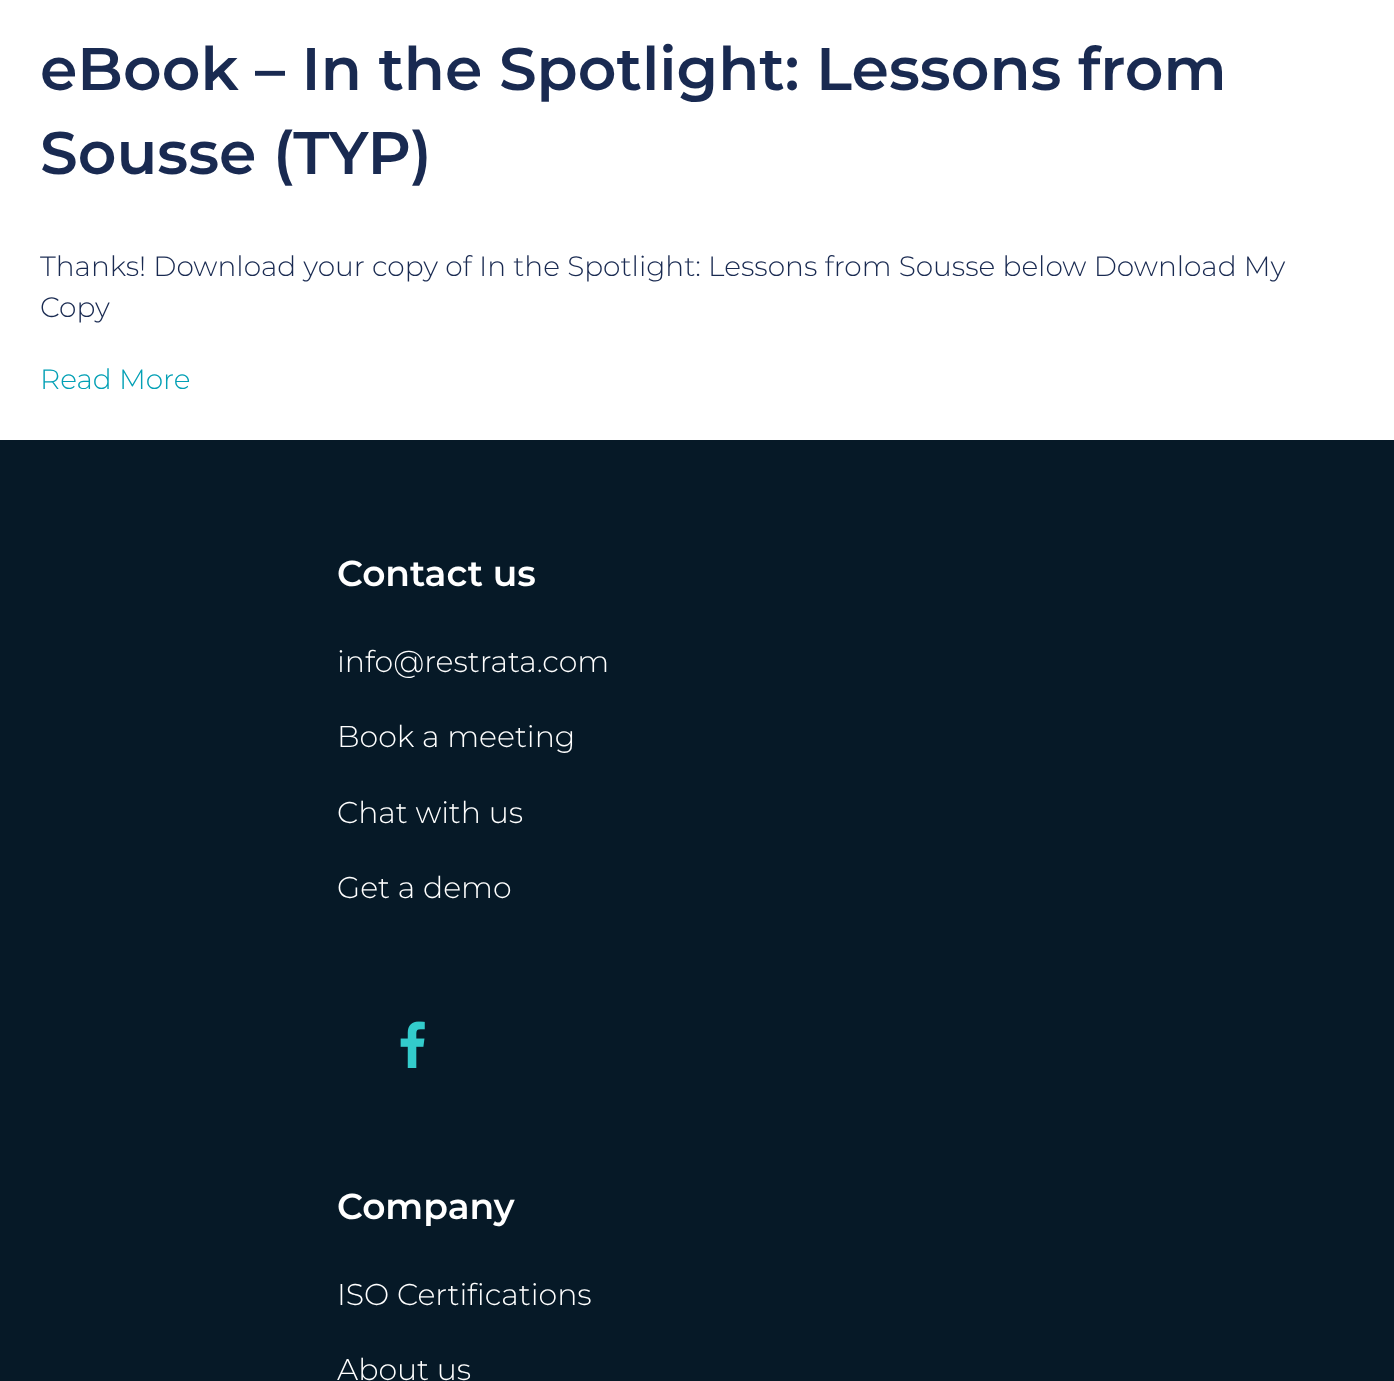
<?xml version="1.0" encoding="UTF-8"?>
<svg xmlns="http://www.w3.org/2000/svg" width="1394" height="1381">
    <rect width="100%" height="100%" fill="#FFFFFF"/>
    <text font-family="Montserrat" font-size="60" font-weight="600" fill="#192A51">
        <tspan x="40" y="90">eBook – In the Spotlight: Lessons from</tspan>
        <tspan x="40" y="174">Sousse (TYP)</tspan>
    </text>
    <text font-family="Montserrat" font-size="28" font-weight="300" fill="#192A51">
        <tspan x="40" y="276">Thanks! Download your copy of In the Spotlight: Lessons from Sousse below Download My</tspan>
        <tspan x="40" y="317">Copy</tspan>
    </text>
    <text x="40" y="389" font-family="Montserrat" font-size="28" font-weight="300" fill="#03A0B5">Read More</text>
    <rect x="0" y="440" width="1394" height="941" fill="#061927"/>
    <text x="337" y="586" font-family="Montserrat" font-size="36" font-weight="600" fill="#FFFFFF">Contact us</text>
    <text x="337" y="672" font-family="Montserrat" font-size="30" font-weight="300" fill="#FFFFFF">info@restrata.com</text>
    <text x="337" y="747" font-family="Montserrat" font-size="30" font-weight="300" fill="#FFFFFF">Book a meeting</text>
    <text x="337" y="823" font-family="Montserrat" font-size="30" font-weight="300" fill="#FFFFFF">Chat with us</text>
    <text x="337" y="898" font-family="Montserrat" font-size="30" font-weight="300" fill="#FFFFFF">Get a demo</text>
    <image x="400" y="1021" width="25" height="47" href="img_01.png"/>
    <text x="337" y="1219" font-family="Montserrat" font-size="36" font-weight="600" fill="#FFFFFF">Company</text>
    <text x="337" y="1305" font-family="Montserrat" font-size="30" font-weight="300" fill="#FFFFFF">ISO Certifications</text>
    <text x="337" y="1380" font-family="Montserrat" font-size="30" font-weight="300" fill="#FFFFFF">About us</text>
</svg>
